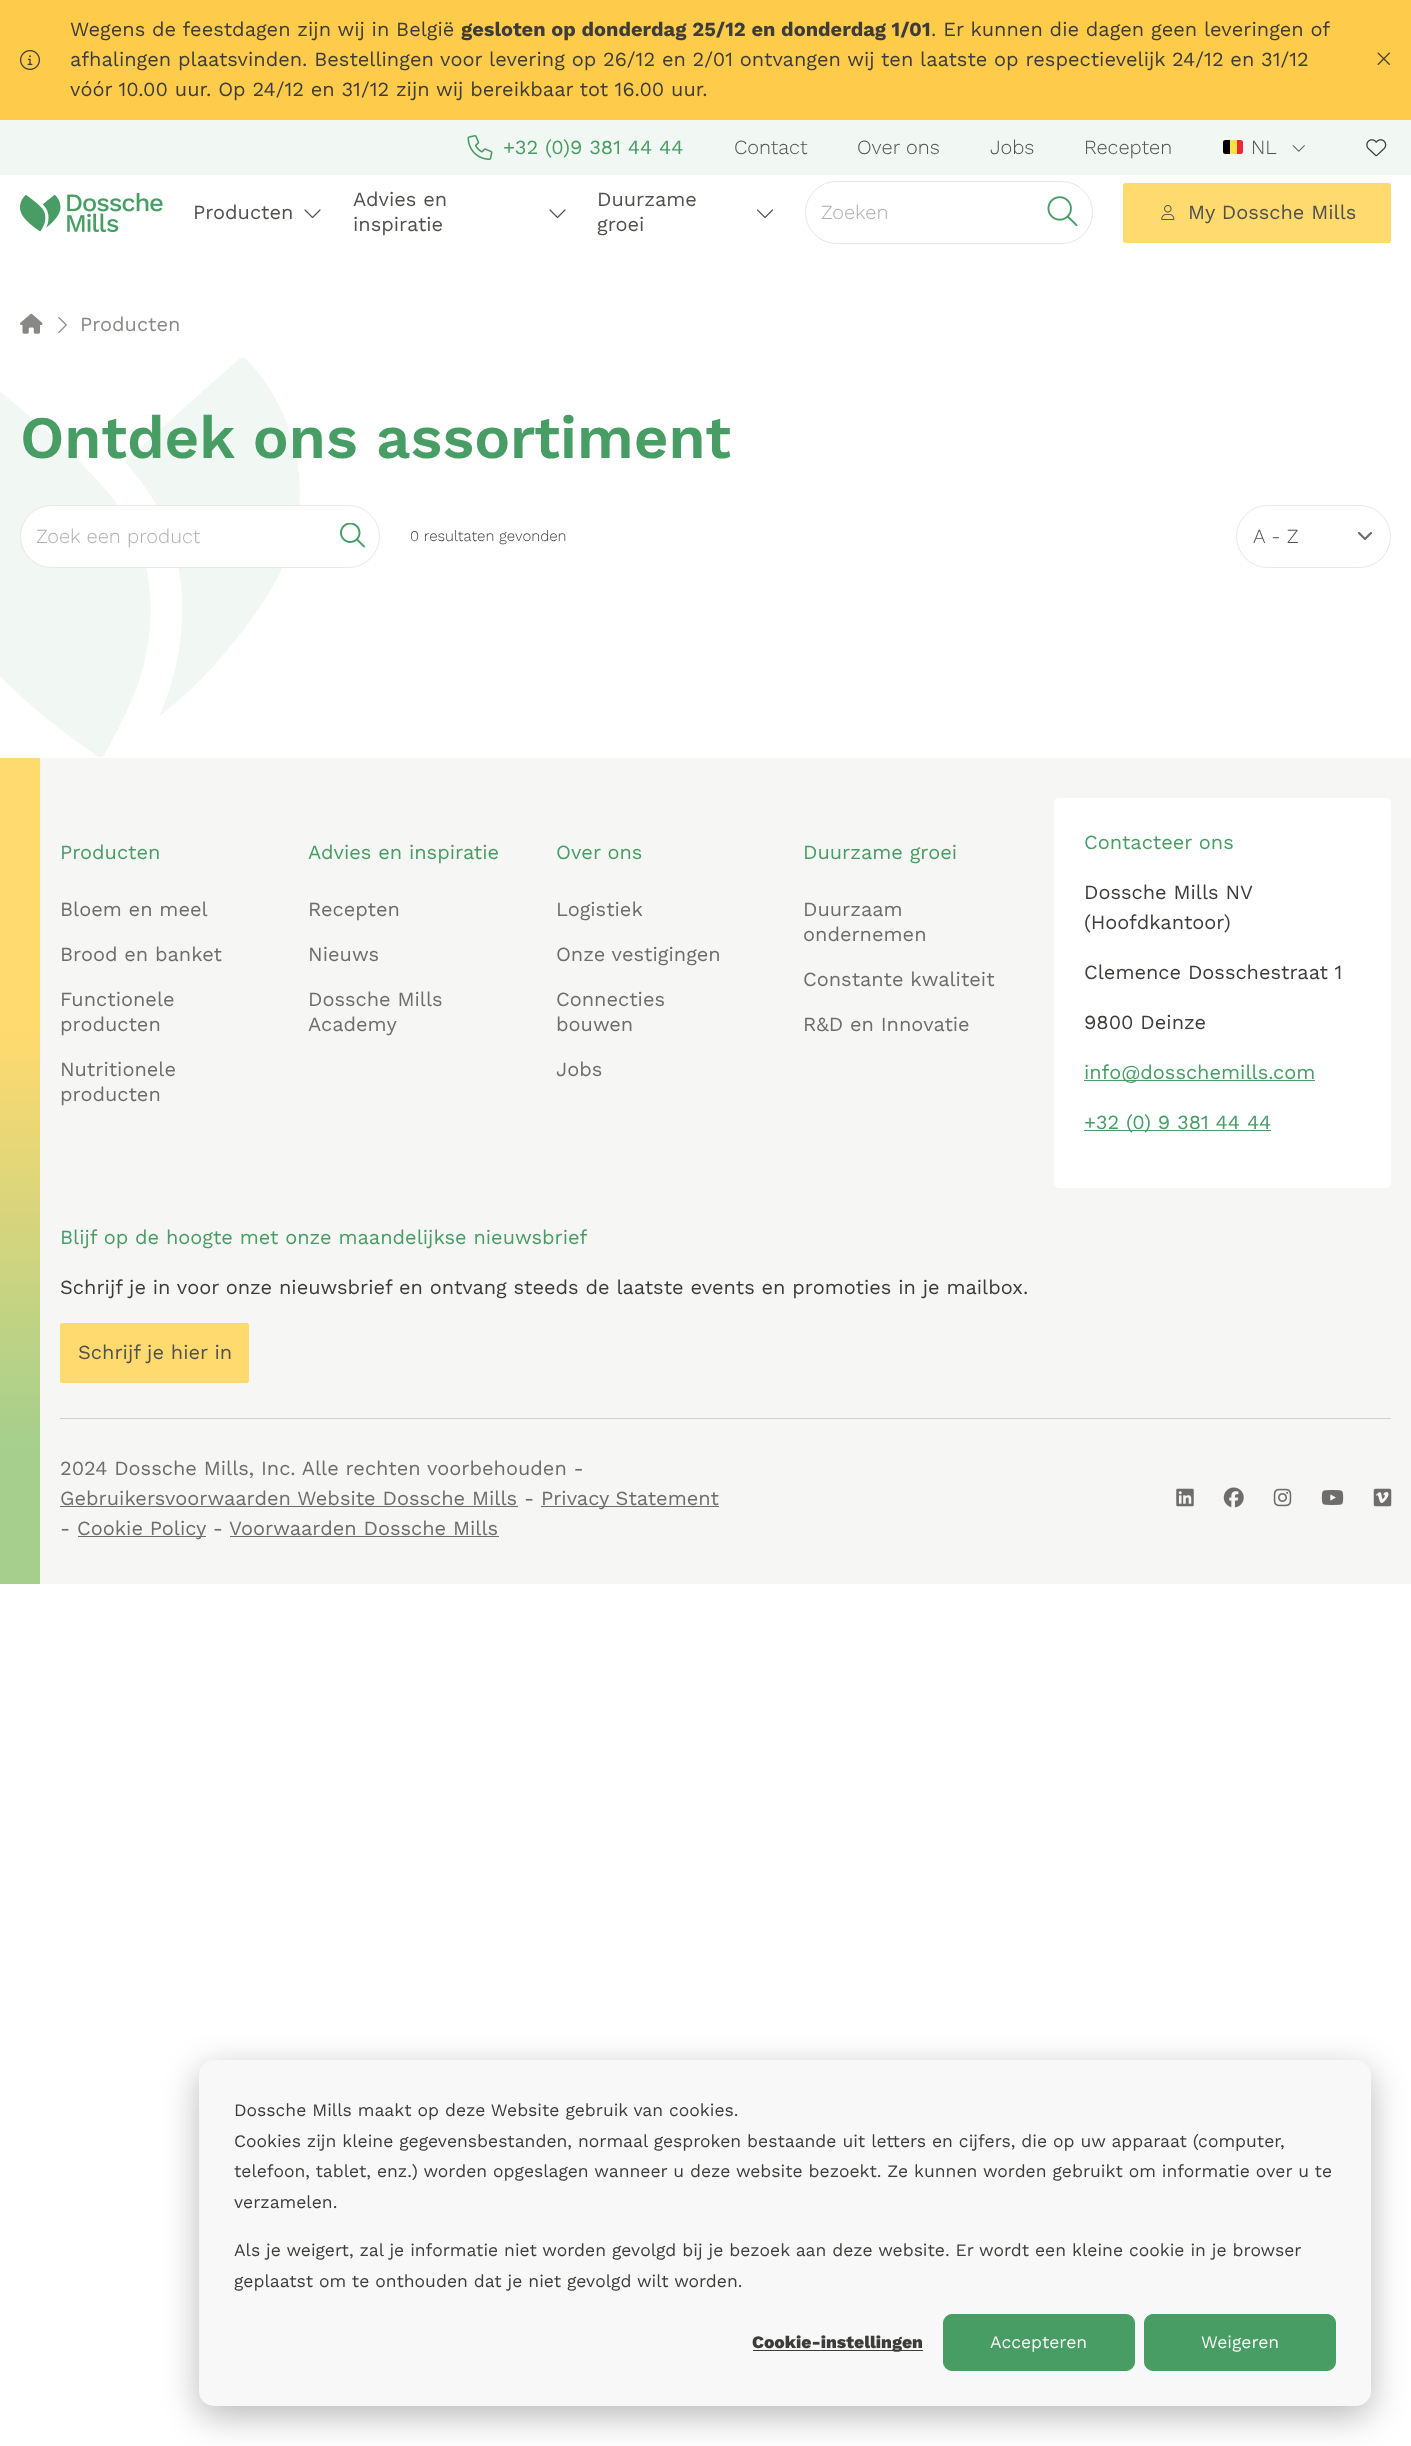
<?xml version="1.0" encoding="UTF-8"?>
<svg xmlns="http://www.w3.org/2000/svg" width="1411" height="2446">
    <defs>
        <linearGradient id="g1" gradientUnits="userSpaceOnUse" x1="20" y1="758" x2="20" y2="1584"><stop offset="0.33" stop-color="#FFDA6F"/><stop offset="0.83" stop-color="#A6CF8D"/></linearGradient>
        <filter id="blur1" x="-50%" y="-200%" width="200%" height="500%"><feGaussianBlur stdDeviation="17.5"/></filter>
    </defs>
    <rect width="100%" height="100%" fill="#FFFFFF"/>
    <rect x="0" y="0" width="1411" height="120" fill="#FFCB4A"/>
    <image x="20" y="50" width="20" height="20" href="img_01.png"/>
    <text x="70" y="36" font-family="Work Sans" font-size="20" fill="#3C3C3B">Wegens de feestdagen zijn wij in België</text>
    <text x="461" y="36" font-family="Work Sans" font-size="20" font-weight="700" fill="#3C3C3B">gesloten op donderdag 25/12 en donderdag 1/01</text>
    <text x="931" y="36" font-family="Work Sans" font-size="20" fill="#3C3C3B">. Er kunnen die dagen geen leveringen of</text>
    <text font-family="Work Sans" font-size="20" fill="#3C3C3B">
        <tspan x="70" y="66">afhalingen plaatsvinden. Bestellingen voor levering op 26/12 en 2/01 ontvangen wij ten laatste op respectievelijk 24/12 en 31/12</tspan>
        <tspan x="70" y="96">vóór 10.00 uur. Op 24/12 en 31/12 zijn wij bereikbaar tot 16.00 uur.</tspan>
    </text>
    <image x="1377" y="52" width="13" height="13" href="img_02.png"/>
    <rect x="0" y="120" width="1411" height="55" fill="#F1F8F3"/>
    <image x="467" y="135" width="26" height="25" href="img_03.png"/>
    <text x="503" y="154" font-family="Work Sans" font-size="20" fill="#479D64">+32 (0)9 381 44 44</text>
    <text x="734" y="154" font-family="Work Sans" font-size="20" font-weight="300" fill="#50504E">Contact</text>
    <text x="857" y="154" font-family="Work Sans" font-size="20" font-weight="300" fill="#50504E">Over ons</text>
    <text x="990" y="154" font-family="Work Sans" font-size="20" font-weight="300" fill="#50504E">Jobs</text>
    <text x="1084" y="154" font-family="Work Sans" font-size="20" font-weight="300" fill="#50504E">Recepten</text>
    <rect x="1223" y="140" width="20" height="14" rx="2.5" fill="#ED2939"/>
    <path d="M 1225.5 140 H 1237 V 154 H 1225.5 C 1224 154 1223 153 1223 151.5 V 142.5 C 1223 141 1224 140 1225.5 140 Z" fill="#FAE042"/>
    <path d="M 1225.5 140 H 1230 V 154 H 1225.5 C 1224 154 1223 153 1223 151.5 V 142.5 C 1223 141 1224 140 1225.5 140 Z" fill="#000000"/>
    <text x="1251" y="154" font-family="Work Sans" font-size="20" font-weight="300" fill="#50504E">NL</text>
    <image x="1292" y="145" width="13" height="7" href="img_04.png"/>
    <image x="1366" y="139" width="21" height="18" href="img_05.png"/>
    <image x="20" y="193" width="143" height="40" href="img_06.png"/>
    <text x="193" y="219" font-family="Work Sans" font-size="20" fill="#50504E">Producten</text>
    <image x="304" y="209" width="17" height="10" href="img_07.png"/>
    <text x="353" y="206" font-family="Work Sans" font-size="20" fill="#50504E">Advies en</text>
    <image x="549" y="209" width="17" height="10" href="img_07.png"/>
    <text x="353" y="231" font-family="Work Sans" font-size="20" fill="#50504E">inspiratie</text>
    <text x="597" y="206" font-family="Work Sans" font-size="20" fill="#50504E">Duurzame</text>
    <image x="757" y="209" width="16" height="9" href="img_08.png"/>
    <text x="597" y="231" font-family="Work Sans" font-size="20" fill="#50504E">groei</text>
    <rect x="805.5" y="181.5" width="287" height="62" rx="31" fill="none" stroke="#E7E7E6"/>
    <text x="821" y="219" font-family="Work Sans" font-size="20" font-weight="300" fill="#B1B0AF">Zoeken</text>
    <image x="1047" y="196" width="31" height="31" href="img_09.png"/>
    <rect x="1124.5" y="184.5" width="265" height="57" rx="1" fill="#FFDA6F" stroke="#FFDA6F" stroke-width="3"/>
    <image x="1161" y="205" width="14" height="15" href="img_10.png"/>
    <text x="1188" y="219" font-family="Work Sans" font-size="20" fill="#50504E">My Dossche Mills</text>
    <image x="20" y="313" width="23" height="21" href="img_11.png"/>
    <image x="58" y="316" width="9" height="18" href="img_12.png"/>
    <text x="80" y="331" font-family="Work Sans" font-size="20" fill="#898887">Producten</text>
    <image x="0" y="358" width="300" height="400" href="img_14.png"/>
    <text x="20" y="458" font-family="Work Sans" font-size="60" font-weight="600" fill="#479D64">Ontdek ons assortiment</text>
    <rect x="20.5" y="505.5" width="359" height="62" rx="31" fill="#FFFFFF" stroke="#E7E7E6"/>
    <text x="36" y="543" font-family="Work Sans" font-size="20" font-weight="300" fill="#B1B0AF">Zoek een product</text>
    <image x="340" y="523" width="25" height="25" href="img_13.png"/>
    <text x="410" y="541" font-family="Work Sans" font-size="15" font-weight="300" fill="#3C3C3B">0 resultaten gevonden</text>
    <path d="M 1359 533 L 1365 539 L 1371 533" fill="none" stroke="#6E6D6C" stroke-width="2.2" stroke-linecap="round" stroke-linejoin="round"/>
    <rect x="1236.5" y="505.5" width="154" height="62" rx="31" fill="none" stroke="#E7E7E6"/>
    <text x="1253" y="543" font-family="Work Sans" font-size="20" font-weight="300" fill="#50504E">A - Z</text>
    <rect x="0" y="758" width="40" height="826" fill="url(#g1)"/>
    <rect x="40" y="758" width="1371" height="826" fill="#F6F6F5"/>
    <text x="60" y="859" font-family="Work Sans" font-size="20" fill="#479D64">Producten</text>
    <text x="60" y="916" font-family="Work Sans" font-size="20" fill="#6E6D6C">Bloem en meel</text>
    <text x="60" y="961" font-family="Work Sans" font-size="20" fill="#6E6D6C">Brood en banket</text>
    <text font-family="Work Sans" font-size="20" fill="#6E6D6C">
        <tspan x="60" y="1006">Functionele</tspan>
        <tspan x="60" y="1031">producten</tspan>
    </text>
    <text font-family="Work Sans" font-size="20" fill="#6E6D6C">
        <tspan x="60" y="1076">Nutritionele</tspan>
        <tspan x="60" y="1101">producten</tspan>
    </text>
    <text x="308" y="859" font-family="Work Sans" font-size="20" fill="#479D64">Advies en inspiratie</text>
    <text x="308" y="916" font-family="Work Sans" font-size="20" fill="#6E6D6C">Recepten</text>
    <text x="308" y="961" font-family="Work Sans" font-size="20" fill="#6E6D6C">Nieuws</text>
    <text font-family="Work Sans" font-size="20" fill="#6E6D6C">
        <tspan x="308" y="1006">Dossche Mills</tspan>
        <tspan x="308" y="1031">Academy</tspan>
    </text>
    <text x="556" y="859" font-family="Work Sans" font-size="20" fill="#479D64">Over ons</text>
    <text x="556" y="916" font-family="Work Sans" font-size="20" fill="#6E6D6C">Logistiek</text>
    <text x="556" y="961" font-family="Work Sans" font-size="20" fill="#6E6D6C">Onze vestigingen</text>
    <text font-family="Work Sans" font-size="20" fill="#6E6D6C">
        <tspan x="556" y="1006">Connecties</tspan>
        <tspan x="556" y="1031">bouwen</tspan>
    </text>
    <text x="556" y="1076" font-family="Work Sans" font-size="20" fill="#6E6D6C">Jobs</text>
    <text x="803" y="859" font-family="Work Sans" font-size="20" fill="#479D64">Duurzame groei</text>
    <text font-family="Work Sans" font-size="20" fill="#6E6D6C">
        <tspan x="803" y="916">Duurzaam</tspan>
        <tspan x="803" y="941">ondernemen</tspan>
    </text>
    <text x="803" y="986" font-family="Work Sans" font-size="20" fill="#6E6D6C">Constante kwaliteit</text>
    <text x="803" y="1031" font-family="Work Sans" font-size="20" fill="#6E6D6C">R&amp;D en Innovatie</text>
    <rect x="1054" y="798" width="337" height="390" rx="5" fill="#FFFFFF"/>
    <text x="1084" y="849" font-family="Work Sans" font-size="20" fill="#479D64">Contacteer ons</text>
    <text font-family="Work Sans" font-size="20" fill="#3C3C3B">
        <tspan x="1084" y="899">Dossche Mills NV</tspan>
        <tspan x="1084" y="929">(Hoofdkantoor)</tspan>
    </text>
    <text x="1084" y="979" font-family="Work Sans" font-size="20" fill="#3C3C3B">Clemence Dosschestraat 1</text>
    <text x="1084" y="1029" font-family="Work Sans" font-size="20" fill="#3C3C3B">9800 Deinze</text>
    <rect x="1084" y="1080" width="231" height="1" fill="#479D64"/>
    <text x="1084" y="1079" font-family="Work Sans" font-size="20" fill="#479D64">info@dosschemills.com</text>
    <rect x="1084" y="1130" width="187" height="1" fill="#479D64"/>
    <text x="1084" y="1129" font-family="Work Sans" font-size="20" fill="#479D64">+32 (0) 9 381 44 44</text>
    <text x="60" y="1244" font-family="Work Sans" font-size="20" fill="#479D64">Blijf op de hoogte met onze maandelijkse nieuwsbrief</text>
    <text x="60" y="1294" font-family="Work Sans" font-size="20" fill="#3C3C3B">Schrijf je in voor onze nieuwsbrief en ontvang steeds de laatste events en promoties in je mailbox.</text>
    <rect x="61.5" y="1324.5" width="186" height="57" rx="1" fill="#FFDA6F" stroke="#FFDA6F" stroke-width="3"/>
    <text x="78" y="1359" font-family="Work Sans" font-size="20" fill="#50504E">Schrijf je hier in</text>
    <rect x="60" y="1418" width="1331" height="1" fill="#D1D1D0"/>
    <text font-family="Work Sans" font-size="20" fill="#6E6D6C">
        <tspan x="60" y="1475">2024 Dossche Mills, Inc. Alle rechten voorbehouden -</tspan>
        <tspan x="60" y="1505">Gebruikersvoorwaarden Website Dossche Mills -</tspan>
    </text>
    <rect x="60" y="1506" width="458" height="1" fill="#6E6D6C"/>
    <rect x="541" y="1506" width="178" height="1" fill="#6E6D6C"/>
    <text x="541" y="1505" font-family="Work Sans" font-size="20" fill="#6E6D6C">Privacy Statement</text>
    <text x="60" y="1535" font-family="Work Sans" font-size="20" fill="#6E6D6C">-</text>
    <rect x="78" y="1536" width="128" height="1" fill="#6E6D6C"/>
    <text x="77" y="1535" font-family="Work Sans" font-size="20" fill="#6E6D6C">Cookie Policy - Voorwaarden Dossche Mills</text>
    <rect x="230" y="1536" width="269" height="1" fill="#6E6D6C"/>
    <image x="1176" y="1488" width="18" height="19" href="img_15.png"/>
    <image x="1223" y="1487" width="21" height="21" href="img_16.png"/>
    <image x="1273" y="1488" width="19" height="19" href="img_17.png"/>
    <image x="1321" y="1490" width="23" height="15" href="img_18.png"/>
    <image x="1373" y="1488" width="19" height="19" href="img_19.png"/>
    <rect x="199" y="2070" width="1172" height="346" rx="15" fill="#000000" fill-opacity="0.28" filter="url(#blur1)"/>
    <rect x="199" y="2060" width="1172" height="346" rx="15" fill="#F8F8F8"/>
    <text font-family="'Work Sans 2'" font-size="17.5" fill="#3C3C3B">
        <tspan x="234" y="2116">Dossche Mills maakt op deze Website gebruik van cookies.</tspan>
        <tspan x="234" y="2147">Cookies zijn kleine gegevensbestanden, normaal gesproken bestaande uit letters en cijfers, die op uw apparaat (computer,</tspan>
        <tspan x="234" y="2177">telefoon, tablet, enz.) worden opgeslagen wanneer u deze website bezoekt. Ze kunnen worden gebruikt om informatie over u te</tspan>
        <tspan x="234" y="2208">verzamelen.</tspan>
    </text>
    <text font-family="'Work Sans 2'" font-size="17.5" fill="#3C3C3B">
        <tspan x="234" y="2256">Als je weigert, zal je informatie niet worden gevolgd bij je bezoek aan deze website. Er wordt een kleine cookie in je browser</tspan>
        <tspan x="234" y="2287">geplaatst om te onthouden dat je niet gevolgd wilt worden.</tspan>
    </text>
    <rect x="753" y="2350" width="170" height="1" fill="#3C3C3B"/>
    <text x="752" y="2348" font-family="Work Sans" font-size="17.5" font-weight="800" fill="#3C3C3B">Cookie-instellingen</text>
    <rect x="943.5" y="2314.5" width="191" height="56" rx="8.5" fill="#479D64" stroke="#479D64"/>
    <text x="990" y="2348" font-family="'Work Sans 2'" font-size="17.5" fill="#F8F8F8">Accepteren</text>
    <rect x="1144.5" y="2314.5" width="191" height="56" rx="8.5" fill="#479D64" stroke="#479D64"/>
    <text x="1201" y="2348" font-family="'Work Sans 2'" font-size="17.5" fill="#F8F8F8">Weigeren</text>
</svg>
